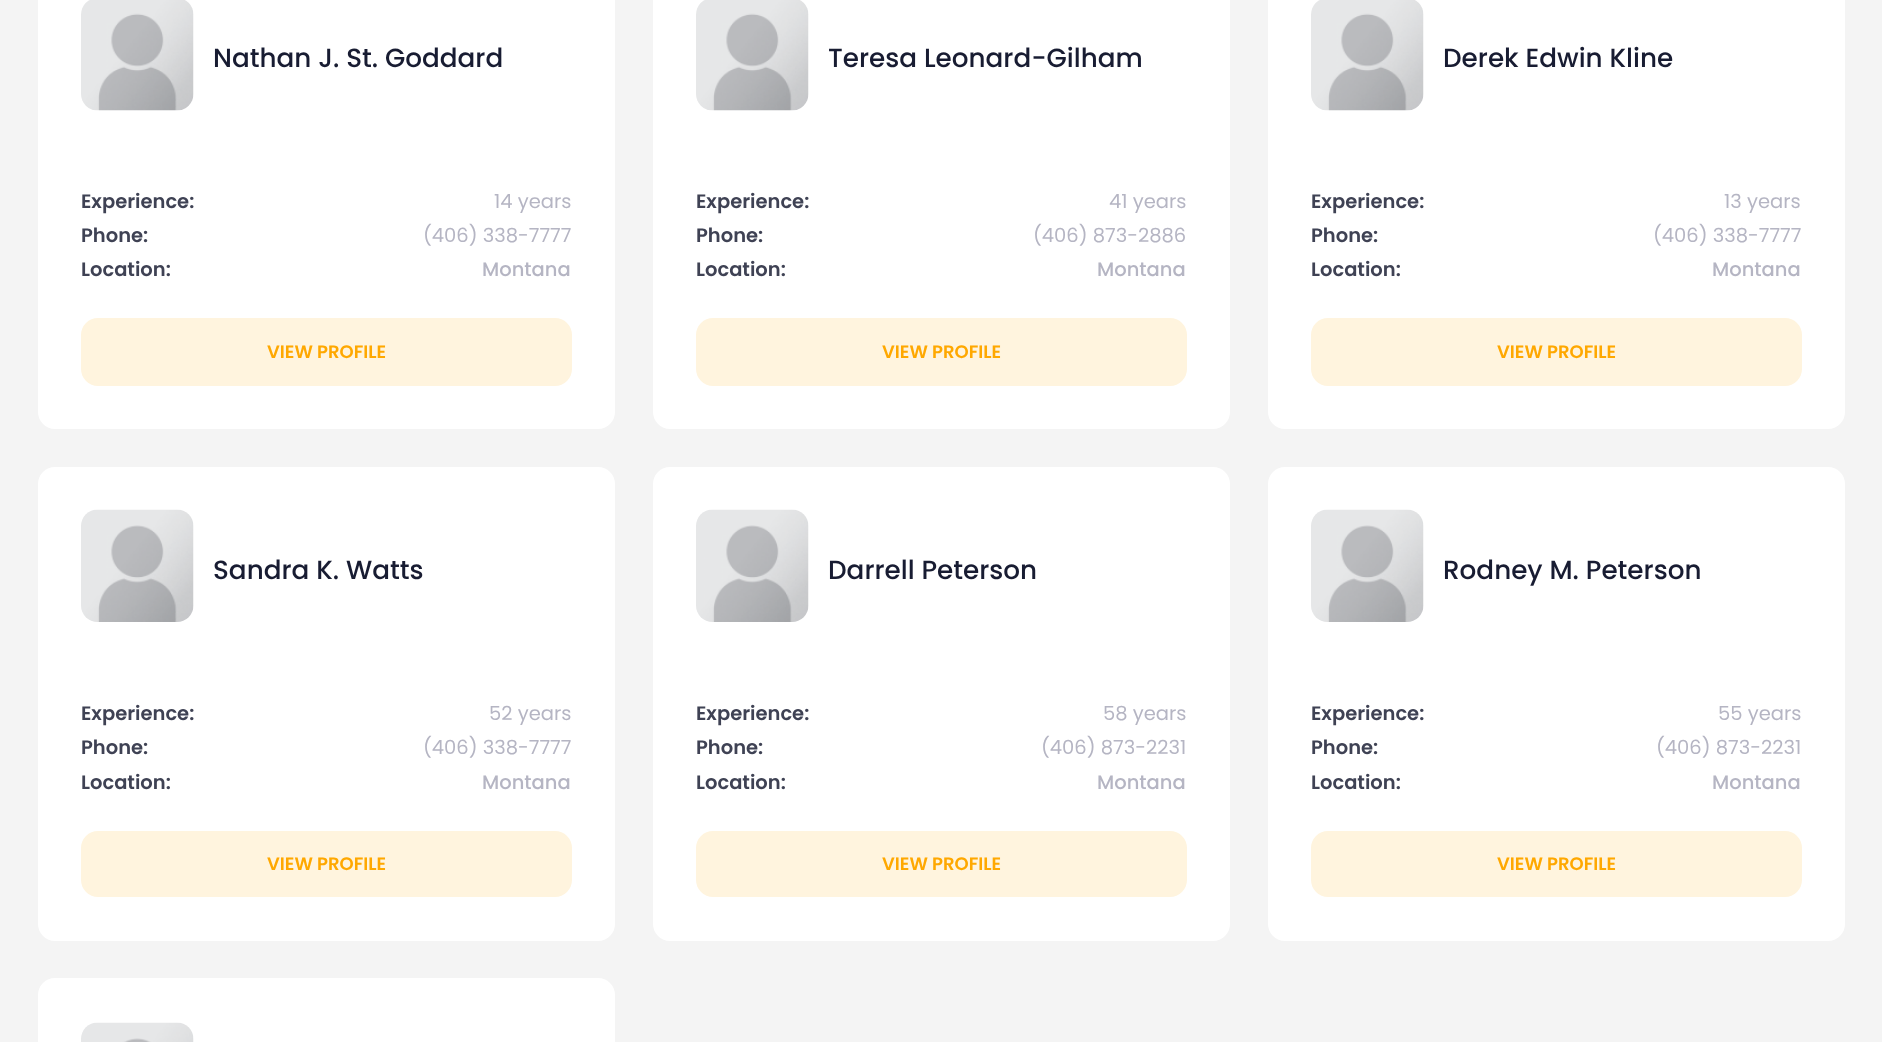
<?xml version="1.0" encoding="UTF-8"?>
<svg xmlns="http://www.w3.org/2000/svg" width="1882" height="1042">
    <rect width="100%" height="100%" fill="#F4F4F4"/>
    <rect x="38" y="-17" width="577" height="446" rx="17" fill="#FFFFFF"/>
    <image x="81" y="0" width="113" height="111" href="img_01.png"/>
    <text x="213" y="67" font-family="Poppins" font-size="26.25" font-weight="500" fill="#181C32">Nathan J. St. Goddard</text>
    <text x="81" y="208" font-family="Poppins" font-size="19.5" font-weight="600" fill="#3F4254">Experience:</text>
    <text x="494" y="208" font-family="Poppins" font-size="19.5" fill="#B5B5C3">14 years</text>
    <text x="81" y="242" font-family="Poppins" font-size="19.5" font-weight="600" fill="#3F4254">Phone:</text>
    <text x="423" y="242" font-family="Poppins" font-size="19.5" fill="#B5B5C3">(406) 338-7777</text>
    <text x="81" y="276" font-family="Poppins" font-size="19.5" font-weight="600" fill="#3F4254">Location:</text>
    <text x="482" y="276" font-family="Poppins" font-size="19.5" font-weight="500" fill="#B5B5C3">Montana</text>
    <rect x="81" y="318" width="491" height="68" rx="17" fill="#FFF4DE"/>
    <text x="267" y="358" font-family="Poppins" font-size="18" font-weight="600" fill="#FFA800">VIEW PROFILE</text>
    <rect x="653" y="-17" width="577" height="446" rx="17" fill="#FFFFFF"/>
    <image x="696" y="0" width="113" height="111" href="img_02.png"/>
    <text x="828" y="67" font-family="Poppins" font-size="26.25" font-weight="500" fill="#181C32">Teresa Leonard-Gilham</text>
    <text x="696" y="208" font-family="Poppins" font-size="19.5" font-weight="600" fill="#3F4254">Experience:</text>
    <text x="1109" y="208" font-family="Poppins" font-size="19.5" fill="#B5B5C3">41 years</text>
    <text x="696" y="242" font-family="Poppins" font-size="19.5" font-weight="600" fill="#3F4254">Phone:</text>
    <text x="1033" y="242" font-family="Poppins" font-size="19.5" fill="#B5B5C3">(406) 873-2886</text>
    <text x="696" y="276" font-family="Poppins" font-size="19.5" font-weight="600" fill="#3F4254">Location:</text>
    <text x="1097" y="276" font-family="Poppins" font-size="19.5" font-weight="500" fill="#B5B5C3">Montana</text>
    <rect x="696" y="318" width="491" height="68" rx="17" fill="#FFF4DE"/>
    <text x="882" y="358" font-family="Poppins" font-size="18" font-weight="600" fill="#FFA800">VIEW PROFILE</text>
    <rect x="1268" y="-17" width="577" height="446" rx="17" fill="#FFFFFF"/>
    <image x="1311" y="0" width="113" height="111" href="img_03.png"/>
    <text x="1443" y="67" font-family="Poppins" font-size="26.25" font-weight="500" fill="#181C32">Derek Edwin Kline</text>
    <text x="1311" y="208" font-family="Poppins" font-size="19.5" font-weight="600" fill="#3F4254">Experience:</text>
    <text x="1724" y="208" font-family="Poppins" font-size="19.5" fill="#B5B5C3">13 years</text>
    <text x="1311" y="242" font-family="Poppins" font-size="19.5" font-weight="600" fill="#3F4254">Phone:</text>
    <text x="1653" y="242" font-family="Poppins" font-size="19.5" fill="#B5B5C3">(406) 338-7777</text>
    <text x="1311" y="276" font-family="Poppins" font-size="19.5" font-weight="600" fill="#3F4254">Location:</text>
    <text x="1712" y="276" font-family="Poppins" font-size="19.5" font-weight="500" fill="#B5B5C3">Montana</text>
    <rect x="1311" y="318" width="491" height="68" rx="17" fill="#FFF4DE"/>
    <text x="1497" y="358" font-family="Poppins" font-size="18" font-weight="600" fill="#FFA800">VIEW PROFILE</text>
    <rect x="38" y="467" width="577" height="474" rx="17" fill="#FFFFFF"/>
    <image x="81" y="509" width="113" height="113" href="img_04.png"/>
    <text x="213" y="579" font-family="Poppins" font-size="26.25" font-weight="500" fill="#181C32">Sandra K. Watts</text>
    <text x="81" y="720" font-family="Poppins" font-size="19.5" font-weight="600" fill="#3F4254">Experience:</text>
    <text x="489" y="720" font-family="Poppins" font-size="19.5" fill="#B5B5C3">52 years</text>
    <text x="81" y="754" font-family="Poppins" font-size="19.5" font-weight="600" fill="#3F4254">Phone:</text>
    <text x="423" y="754" font-family="Poppins" font-size="19.5" fill="#B5B5C3">(406) 338-7777</text>
    <text x="81" y="789" font-family="Poppins" font-size="19.5" font-weight="600" fill="#3F4254">Location:</text>
    <text x="482" y="789" font-family="Poppins" font-size="19.5" font-weight="500" fill="#B5B5C3">Montana</text>
    <rect x="81" y="831" width="491" height="66" rx="17" fill="#FFF4DE"/>
    <text x="267" y="870" font-family="Poppins" font-size="18" font-weight="600" fill="#FFA800">VIEW PROFILE</text>
    <rect x="653" y="467" width="577" height="474" rx="17" fill="#FFFFFF"/>
    <image x="696" y="509" width="113" height="113" href="img_05.png"/>
    <text x="828" y="579" font-family="Poppins" font-size="26.25" font-weight="500" fill="#181C32">Darrell Peterson</text>
    <text x="696" y="720" font-family="Poppins" font-size="19.5" font-weight="600" fill="#3F4254">Experience:</text>
    <text x="1103" y="720" font-family="Poppins" font-size="19.5" fill="#B5B5C3">58 years</text>
    <text x="696" y="754" font-family="Poppins" font-size="19.5" font-weight="600" fill="#3F4254">Phone:</text>
    <text x="1041" y="754" font-family="Poppins" font-size="19.5" fill="#B5B5C3">(406) 873-2231</text>
    <text x="696" y="789" font-family="Poppins" font-size="19.5" font-weight="600" fill="#3F4254">Location:</text>
    <text x="1097" y="789" font-family="Poppins" font-size="19.5" font-weight="500" fill="#B5B5C3">Montana</text>
    <rect x="696" y="831" width="491" height="66" rx="17" fill="#FFF4DE"/>
    <text x="882" y="870" font-family="Poppins" font-size="18" font-weight="600" fill="#FFA800">VIEW PROFILE</text>
    <rect x="1268" y="467" width="577" height="474" rx="17" fill="#FFFFFF"/>
    <image x="1311" y="509" width="113" height="113" href="img_06.png"/>
    <text x="1443" y="579" font-family="Poppins" font-size="26.25" font-weight="500" fill="#181C32">Rodney M. Peterson</text>
    <text x="1311" y="720" font-family="Poppins" font-size="19.5" font-weight="600" fill="#3F4254">Experience:</text>
    <text x="1718" y="720" font-family="Poppins" font-size="19.5" fill="#B5B5C3">55 years</text>
    <text x="1311" y="754" font-family="Poppins" font-size="19.5" font-weight="600" fill="#3F4254">Phone:</text>
    <text x="1656" y="754" font-family="Poppins" font-size="19.5" fill="#B5B5C3">(406) 873-2231</text>
    <text x="1311" y="789" font-family="Poppins" font-size="19.5" font-weight="600" fill="#3F4254">Location:</text>
    <text x="1712" y="789" font-family="Poppins" font-size="19.5" font-weight="500" fill="#B5B5C3">Montana</text>
    <rect x="1311" y="831" width="491" height="66" rx="17" fill="#FFF4DE"/>
    <text x="1497" y="870" font-family="Poppins" font-size="18" font-weight="600" fill="#FFA800">VIEW PROFILE</text>
    <rect x="38" y="978" width="577" height="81" rx="17" fill="#FFFFFF"/>
    <image x="81" y="1022" width="113" height="20" href="img_07.png"/>
</svg>
